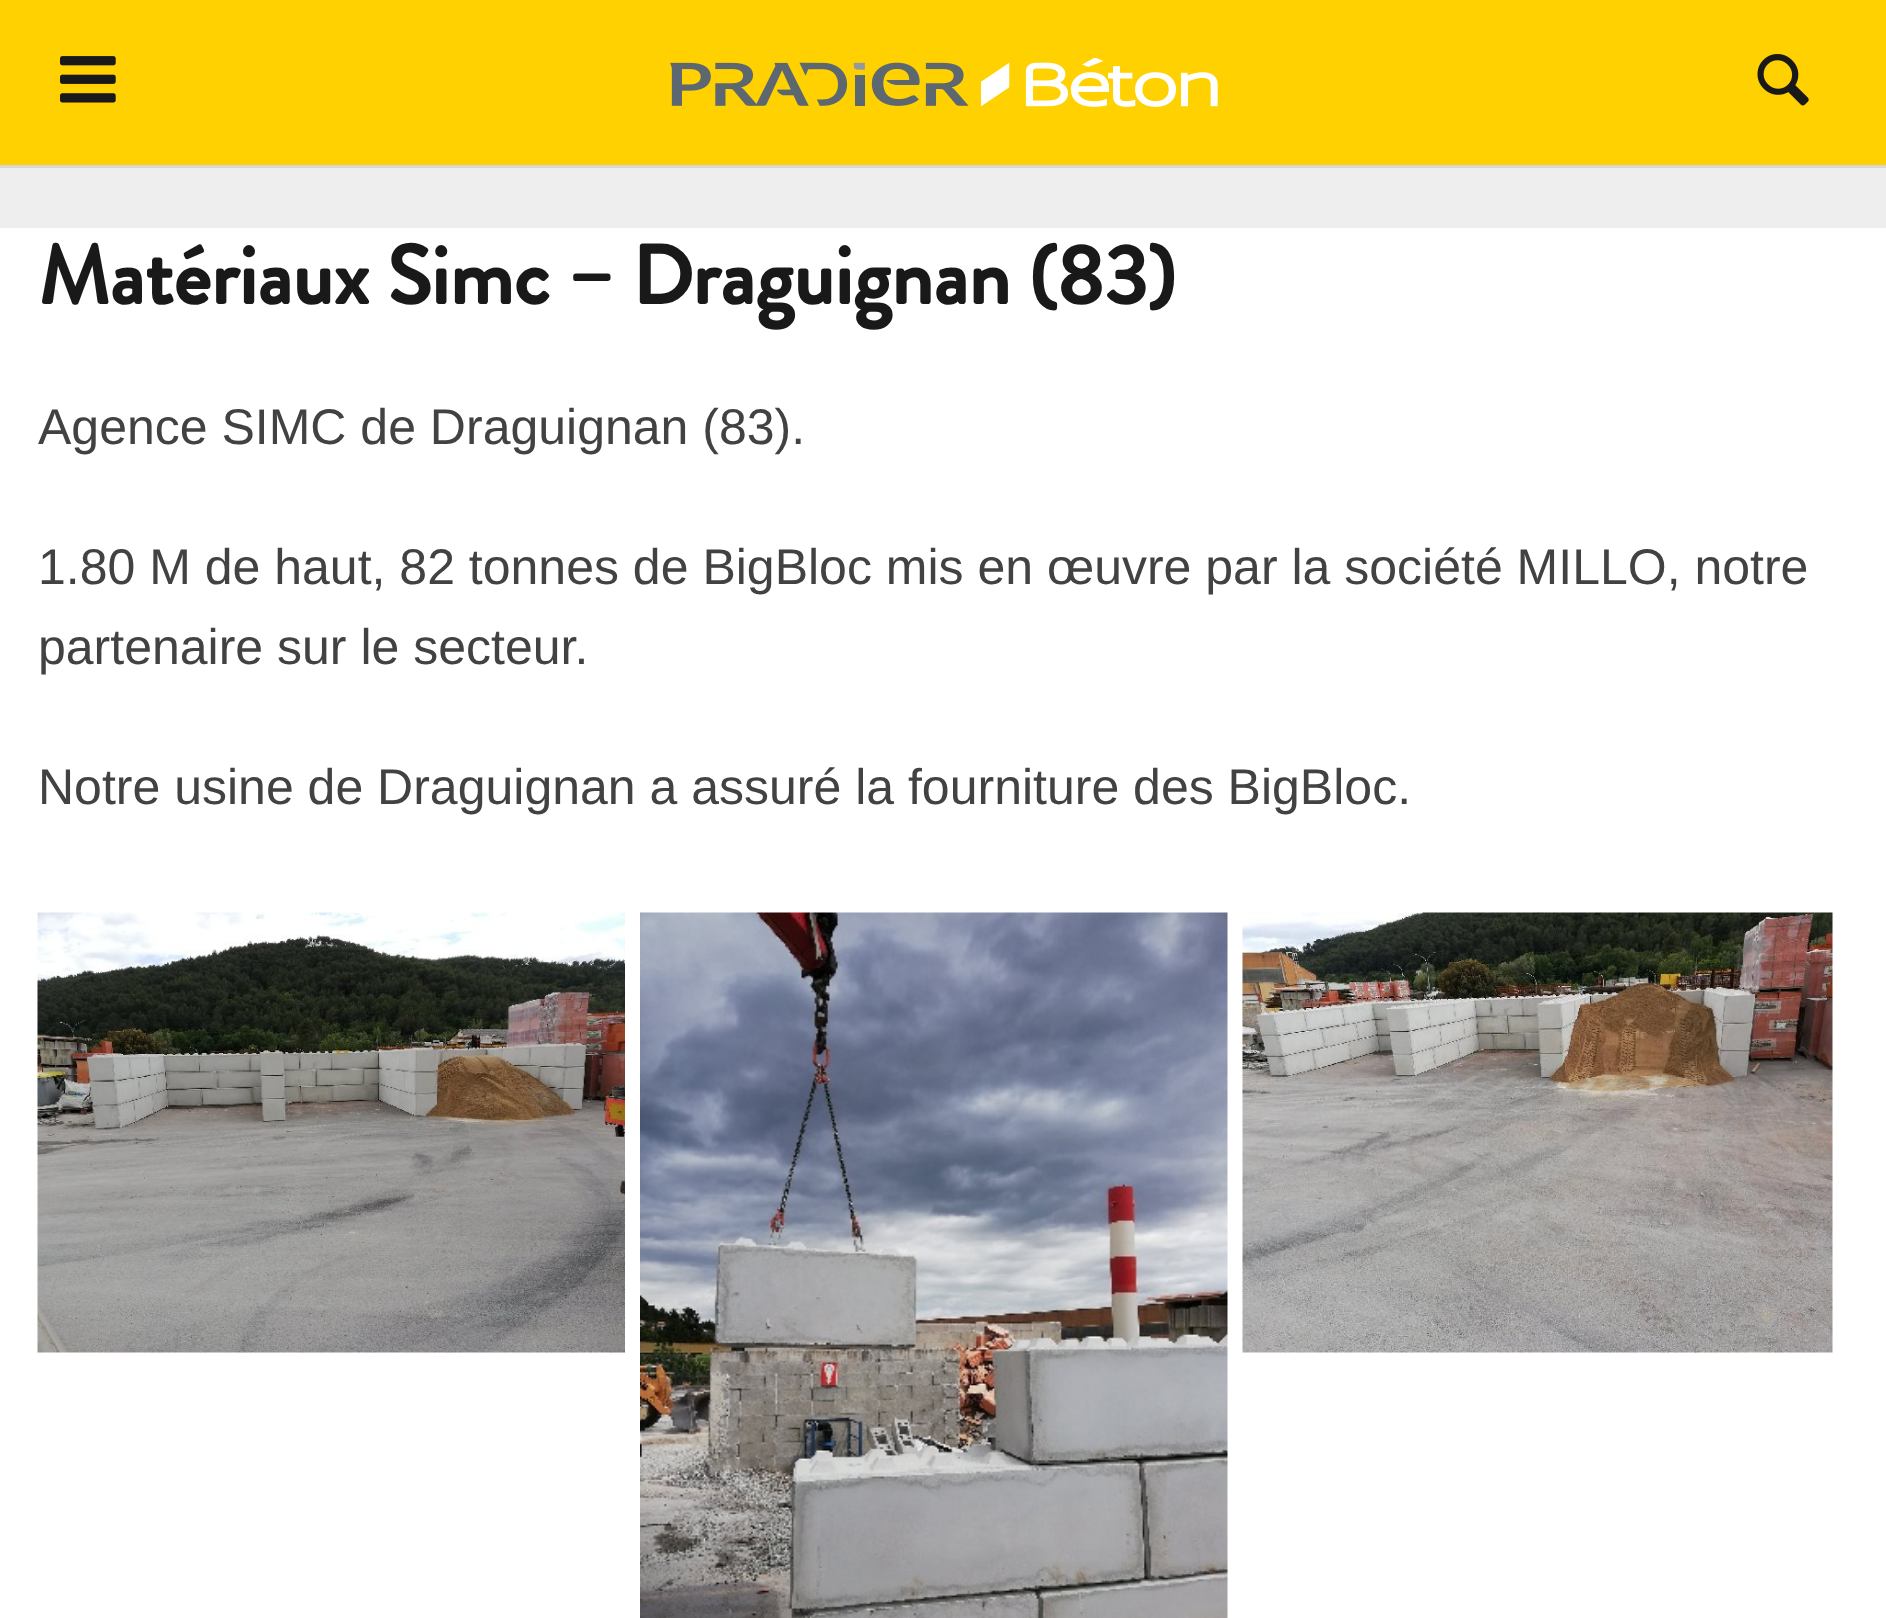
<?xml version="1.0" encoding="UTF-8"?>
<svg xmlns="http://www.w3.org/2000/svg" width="1886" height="1618">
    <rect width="100%" height="100%" fill="#EEEEEE"/>
    <rect x="0" y="165" width="1886" height="3" fill="#D8D8D8"/>
    <rect x="0" y="0" width="1886" height="165" fill="#FFD101"/>
    <image x="60" y="56" width="56" height="47" href="img_01.png"/>
    <image x="670" y="58" width="548" height="49" href="img_02.png"/>
    <image x="1757" y="54" width="52" height="52" href="img_03.png"/>
    <rect x="0" y="228" width="1886" height="1390" fill="#FFFFFF"/>
    <text x="38" y="304" font-family="Brandon Grotesque" font-size="83" font-weight="700" fill="#1A1919">Matériaux Simc – Draguignan (83)</text>
    <text x="38" y="444" font-family="Liberation Sans" font-size="50" fill="#424242">Agence SIMC de Draguignan (83).</text>
    <text font-family="Liberation Sans" font-size="50" fill="#424242">
        <tspan x="38" y="584">1.80 M de haut, 82 tonnes de BigBloc mis en œuvre par la société MILLO, notre</tspan>
        <tspan x="38" y="664">partenaire sur le secteur.</tspan>
    </text>
    <text x="38" y="804" font-family="Liberation Sans" font-size="50" fill="#424242">Notre usine de Draguignan a assuré la fourniture des BigBloc.</text>
    <image x="37" y="912" width="588" height="441" href="img_04.png"/>
    <image x="640" y="912" width="588" height="706" href="img_05.png"/>
    <image x="1242" y="912" width="591" height="441" href="img_06.png"/>
</svg>
